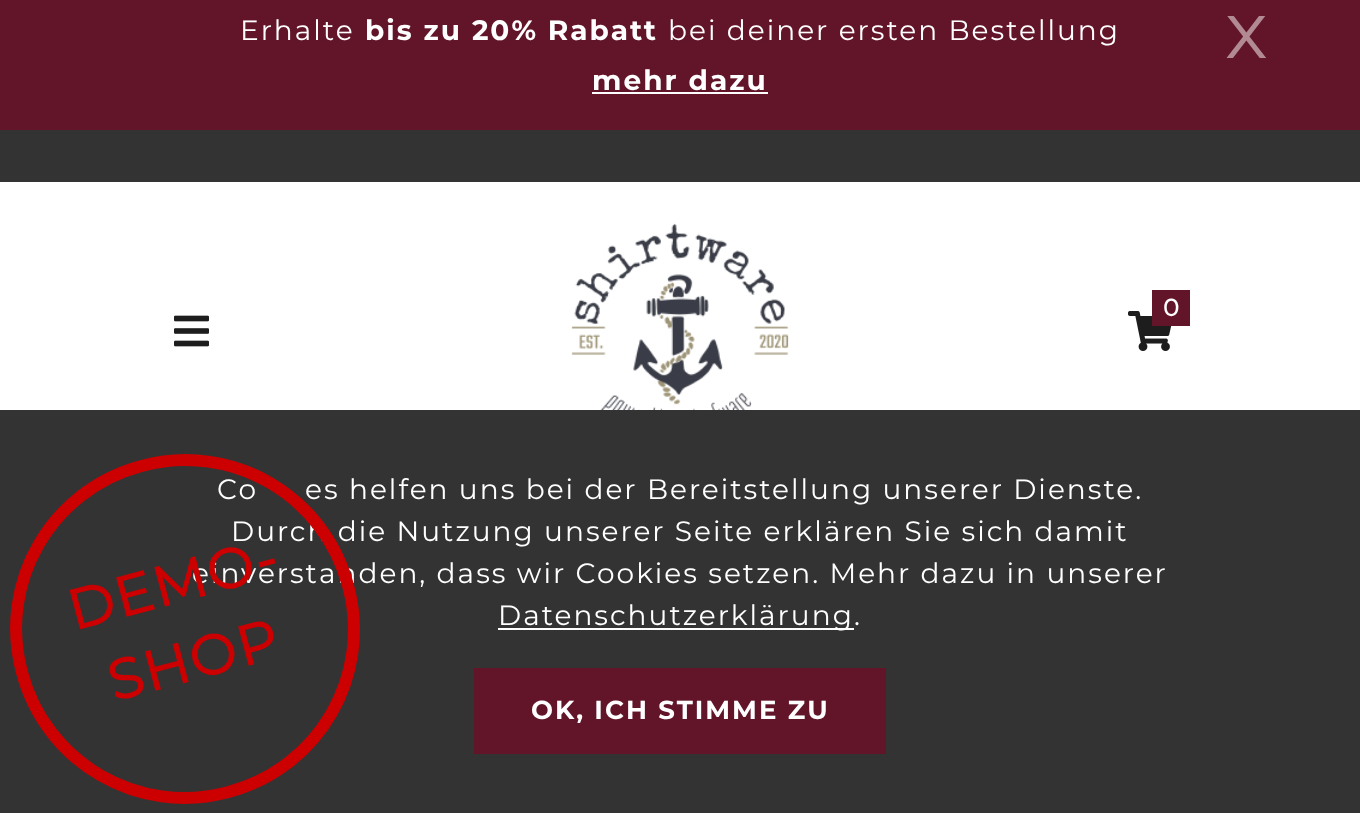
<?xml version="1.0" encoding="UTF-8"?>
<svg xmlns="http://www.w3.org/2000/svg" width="1360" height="813">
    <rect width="100%" height="100%" fill="#FFFFFF"/>
    <rect x="0" y="0" width="1360" height="130" fill="#621529"/>
    <text x="240" y="40" font-family="Montserrat" font-size="28" letter-spacing="2" fill="#FFFFFF">Erhalte</text>
    <text x="365" y="40" font-family="Montserrat" font-size="28" font-weight="700" letter-spacing="2" fill="#FFFFFF">bis zu 20% Rabatt</text>
    <text x="668" y="40" font-family="Montserrat" font-size="28" letter-spacing="2" fill="#FFFFFF">bei deiner ersten Bestellung</text>
    <text x="592" y="90" font-family="Montserrat" font-size="28" font-weight="700" letter-spacing="2" fill="#FFFFFF">mehr dazu</text>
    <rect x="592" y="92" width="176" height="2" fill="#FFFFFF"/>
    <text x="1225" y="58" font-family="Montserrat" font-size="80" letter-spacing="2" fill="#B18A94">x</text>
    <rect x="0" y="130" width="1360" height="52" fill="#333333"/>
    <image x="571" y="223" width="218" height="187" href="img_01.png"/>
    <image x="1128" y="311" width="44" height="40" href="img_02.png"/>
    <rect x="1152" y="290" width="38" height="36" fill="#621529"/>
    <text x="1163" y="316" font-family="'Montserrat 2'" font-size="24" font-weight="700" letter-spacing="2" fill="#FFFFFF">0</text>
    <image x="174" y="315" width="35" height="32" href="img_03.png"/>
    <rect x="0" y="410" width="1360" height="403" fill="#333333"/>
    <text x="217" y="499" font-family="Montserrat" font-size="28" letter-spacing="2" fill="#FFFFFF">Co</text>
    <text x="305" y="499" font-family="Montserrat" font-size="28" letter-spacing="2" fill="#FFFFFF">es helfen uns bei der Bereitstellung unserer Dienste.</text>
    <text x="231" y="541" font-family="Montserrat" font-size="28" letter-spacing="2" fill="#FFFFFF">Durch die Nutzung unserer Seite erklären Sie sich damit</text>
    <text x="192" y="583" font-family="Montserrat" font-size="28" letter-spacing="2" fill="#FFFFFF">einverstanden, dass wir Cookies setzen. Mehr dazu in unserer</text>
    <path d="M 141.5 466 C 231.5 441.5 324 495 348 585.5 C 372.5 675.5 319 768 228.5 792 C 138.5 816.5 46 763 22 672.5 C -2.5 582.5 51 490 141.5 466 Z" fill="none" stroke="#CC0000" stroke-width="12"/>
    <text x="74" y="631" transform="rotate(-15 74 631)" font-family="'Montserrat 2'" font-size="56" font-weight="700" letter-spacing="2" fill="#CC0000">DEMO-</text>
    <text x="114" y="702" transform="rotate(-15 114 702)" font-family="'Montserrat 2'" font-size="56" font-weight="700" letter-spacing="2" fill="#CC0000">SHOP</text>
    <rect x="498" y="628" width="356" height="2" fill="#FFFFFF"/>
    <text x="498" y="625" font-family="Montserrat" font-size="28" letter-spacing="2" fill="#FFFFFF">Datenschutzerklärung.</text>
    <rect x="474" y="668" width="412" height="86" fill="#621529"/>
    <text x="531" y="719" font-family="Montserrat" font-size="26" font-weight="700" letter-spacing="2" fill="#FFFFFF">OK, ICH STIMME ZU</text>
</svg>
